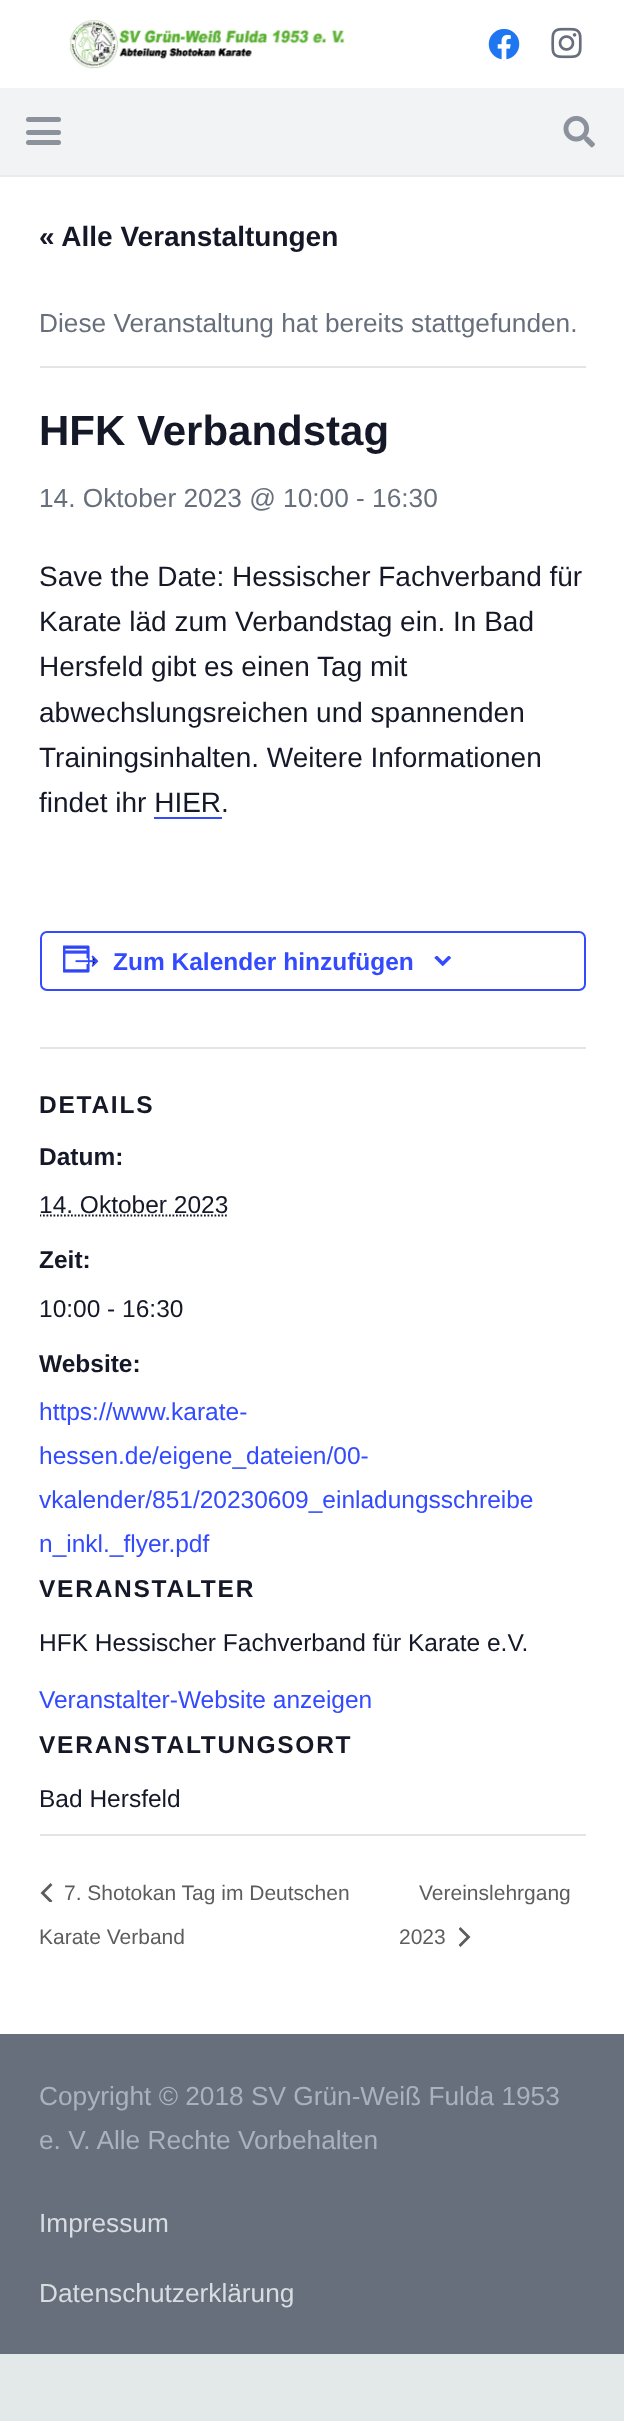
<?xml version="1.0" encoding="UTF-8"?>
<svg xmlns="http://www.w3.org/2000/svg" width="624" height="2421">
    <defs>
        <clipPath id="clip1"><rect x="40" y="555" width="546" height="1279"/></clipPath>
        <clipPath id="clip2"><rect x="40" y="1883" width="13" height="19"/></clipPath>
        <clipPath id="clip3"><rect x="459" y="1927" width="12" height="21"/></clipPath>
    </defs>
    <rect width="100%" height="100%" fill="#E3E8E8"/>
    <rect x="0" y="0" width="624" height="2034" fill="#FFFFFF"/>
    <image x="69" y="20" width="276" height="49" href="img_01.png"/>
    <image x="488" y="28" width="32" height="32" href="img_02.png"/>
    <image x="551" y="27" width="31" height="32" href="img_03.png"/>
    <path d="M 0 175 V 177 H 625 V 89 V 175 Z" fill="#EBEBEB"/>
    <rect x="0" y="88" width="624" height="87" fill="#F2F3F5"/>
    <rect x="26" y="130" width="35" height="5" rx="2.5" fill="#8C929C"/>
    <rect x="26" y="117" width="35" height="5" rx="2.5" fill="#8C929C"/>
    <rect x="26" y="140" width="35" height="5" rx="2.5" fill="#8C929C"/>
    <image x="563" y="116" width="32" height="32" href="img_04.png"/>
    <text x="39" y="246" font-family="Liberation Sans" font-size="28" font-weight="700" fill="#141827">« Alle Veranstaltungen</text>
    <rect x="40" y="366" width="546" height="2" fill="#E4E4E4"/>
    <text x="39" y="332" font-family="Liberation Sans" font-size="26.25" fill="#676F7C">Diese Veranstaltung hat bereits stattgefunden.</text>
    <text x="39" y="445" font-family="Liberation Sans" font-size="42" font-weight="700" fill="#141827">HFK Verbandstag</text>
    <text x="39" y="507" font-family="Liberation Sans" font-size="26.25" fill="#676F7C">14. Oktober 2023 @ 10:00 - 16:30</text>
    <text font-family="Liberation Sans" font-size="28" fill="#141827">
        <tspan x="39" y="586">Save the Date: Hessischer Fachverband für</tspan>
        <tspan x="39" y="631">Karate läd zum Verbandstag ein. In Bad</tspan>
        <tspan x="39" y="676">Hersfeld gibt es einen Tag mit</tspan>
        <tspan x="39" y="722">abwechslungsreichen und spannenden</tspan>
        <tspan x="39" y="767">Trainingsinhalten. Weitere Informationen</tspan>
        <tspan x="39" y="812">findet ihr HIER.</tspan>
    </text>
    <rect x="154" y="817" width="68" height="2" fill="#334AFF"/>
    <rect x="41" y="932" width="544" height="58" rx="6" fill="none" stroke="#334AFF" stroke-width="2"/>
    <image x="63" y="945" width="36" height="28" href="img_05.png"/>
    <text x="113" y="970" font-family="Liberation Sans" font-size="24.5" font-weight="700" fill="#334AFF">Zum Kalender hinzufügen</text>
    <image x="434" y="956" width="18" height="10" href="img_06.png"/>
    <rect x="40" y="1047" width="546" height="2" fill="#E4E4E4"/>
    <text x="39" y="1113" font-family="Liberation Sans" font-size="24.5" font-weight="700" letter-spacing="1.75" fill="#141827">DETAILS</text>
    <text x="39" y="1165" font-family="Liberation Sans" font-size="24.5" font-weight="700" fill="#141827">Datum:</text>
    <text x="39" y="1213" font-family="Liberation Sans" font-size="24.5" fill="#141827">14. Oktober 2023</text>
    <g clip-path="url(#clip1)">
        <path d="M 39.5 1215.5 H 228.5" fill="none" stroke="#141827" stroke-width="1.8" stroke-dasharray="1.75 1.75"/>
    </g>
    <text x="39" y="1268" font-family="Liberation Sans" font-size="24.5" font-weight="700" fill="#141827">Zeit:</text>
    <text x="39" y="1317" font-family="Liberation Sans" font-size="24.5" fill="#141827">10:00 - 16:30</text>
    <text x="39" y="1372" font-family="Liberation Sans" font-size="24.5" font-weight="700" fill="#141827">Website:</text>
    <text font-family="Liberation Sans" font-size="24.5" fill="#334AFF">
        <tspan x="39" y="1420">https://www.karate-</tspan>
        <tspan x="39" y="1464">hessen.de/eigene_dateien/00-</tspan>
        <tspan x="39" y="1508">vkalender/851/20230609_einladungsschreibe</tspan>
        <tspan x="39" y="1552">n_inkl._flyer.pdf</tspan>
    </text>
    <text x="39" y="1597" font-family="Liberation Sans" font-size="24.5" font-weight="700" letter-spacing="1.75" fill="#141827">VERANSTALTER</text>
    <text x="39" y="1651" font-family="Liberation Sans" font-size="24.5" fill="#141827">HFK Hessischer Fachverband für Karate e.V.</text>
    <text x="39" y="1708" font-family="Liberation Sans" font-size="24.5" fill="#334AFF">Veranstalter-Website anzeigen</text>
    <text x="39" y="1753" font-family="Liberation Sans" font-size="24.5" font-weight="700" letter-spacing="1.75" fill="#141827">VERANSTALTUNGSORT</text>
    <text x="39" y="1807" font-family="Liberation Sans" font-size="24.5" fill="#141827">Bad Hersfeld</text>
    <rect x="40" y="1834" width="546" height="2" fill="#E4E4E4"/>
    <g clip-path="url(#clip2)">
        <path d="M 52.5 1901 L 50.5 1903 L 40.5 1893 L 50.5 1883 L 52.5 1885 L 44.5 1893 Z" fill="#5D5D5D"/>
    </g>
    <text x="64" y="1900" font-family="Liberation Sans" font-size="21" fill="#5D5D5D">7. Shotokan Tag im Deutschen</text>
    <text x="39" y="1944" font-family="Liberation Sans" font-size="21" fill="#5D5D5D">Karate Verband</text>
    <text x="419" y="1900" font-family="Liberation Sans" font-size="21" fill="#5D5D5D">Vereinslehrgang</text>
    <text x="399" y="1944" font-family="Liberation Sans" font-size="21" fill="#5D5D5D">2023</text>
    <g clip-path="url(#clip3)">
        <path d="M 458.5 1929 L 460.5 1927 L 470.5 1937 L 460.5 1947 L 458.5 1945 L 466.5 1937 Z" fill="#5D5D5D"/>
    </g>
    <rect x="0" y="2034" width="624" height="320" fill="#676F7C"/>
    <text font-family="Liberation Sans" font-size="26.25" fill="#AAB2BD">
        <tspan x="39" y="2105">Copyright © 2018 SV Grün-Weiß Fulda 1953</tspan>
        <tspan x="39" y="2149">e. V. Alle Rechte Vorbehalten</tspan>
    </text>
    <text x="39" y="2232" font-family="Liberation Sans" font-size="26.25" fill="#D7DDE0">Impressum</text>
    <text x="39" y="2302" font-family="Liberation Sans" font-size="26.25" fill="#D7DDE0">Datenschutzerklärung</text>
</svg>
